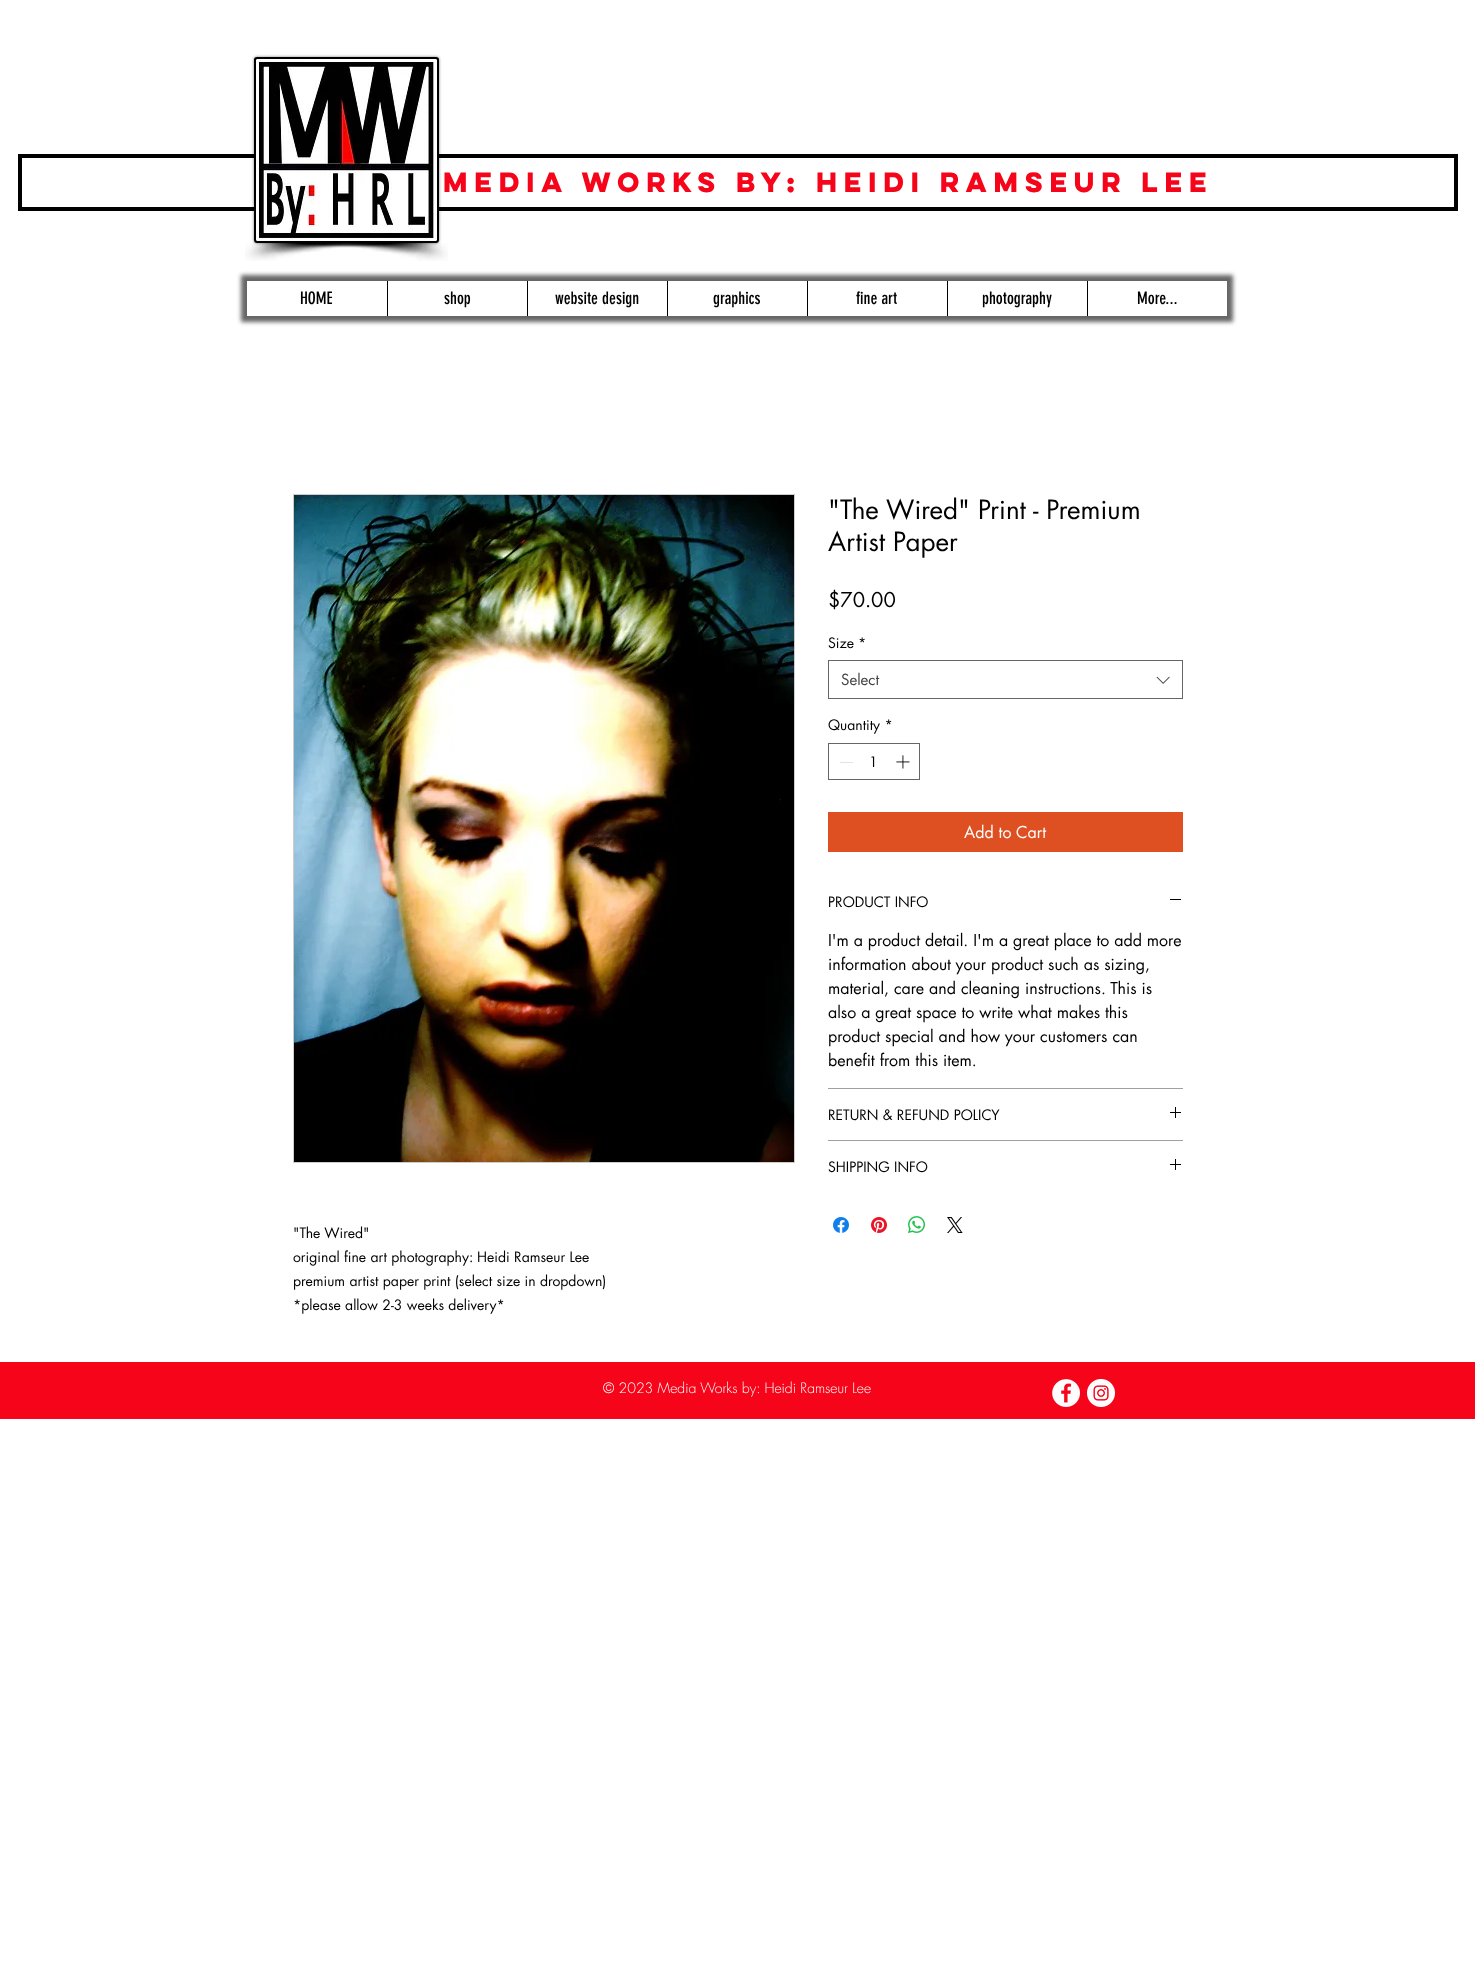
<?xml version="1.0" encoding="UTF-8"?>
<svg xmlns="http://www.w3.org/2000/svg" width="1475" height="1975">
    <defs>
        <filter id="blur1" x="-50%" y="-200%" width="200%" height="500%"><feGaussianBlur stdDeviation="1.5"/></filter>
        <clipPath id="clip1"><path d="M 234 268 H 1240 V 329 H 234 Z M 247 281 H 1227 V 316 H 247 Z" clip-rule="evenodd"/></clipPath>
        <filter id="blur2" x="-50%" y="-200%" width="200%" height="500%"><feGaussianBlur stdDeviation="2"/></filter>
    </defs>
    <rect width="100%" height="100%" fill="#FFFFFF"/>
    <rect x="20" y="156" width="1436" height="53" fill="none" stroke="#000000" stroke-width="4"/>
    <rect x="254" y="57" width="185" height="186" rx="3" fill="#000000" fill-opacity="0.5" filter="url(#blur1)"/>
    <rect x="255" y="58" width="183" height="184" rx="2" fill="#000000" stroke="#000000" stroke-width="2"/>
    <image x="256" y="59" width="181" height="182" href="img_01.png"/>
    <image x="245" y="243" width="154" height="18" href="img_02.png"/>
    <image x="321" y="243" width="127" height="18" href="img_03.png"/>
    <text x="443" y="192" font-family="'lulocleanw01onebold'" font-size="25" font-weight="700" letter-spacing="1.25" fill="#F60419">Media works by: Heidi ramseur Lee</text>
    <g clip-path="url(#clip1)">
        <rect x="241" y="275" width="992" height="47" fill="#000000" fill-opacity="0.6" filter="url(#blur2)"/>
    </g>
    <text x="300" y="304" font-family="'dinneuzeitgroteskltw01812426'" font-size="17" fill="#000000">HOME</text>
    <rect x="387" y="281" width="1" height="35" fill="#000000"/>
    <text x="444" y="304" font-family="'dinneuzeitgroteskltw01812426'" font-size="17" fill="#000000">shop</text>
    <rect x="527" y="281" width="1" height="35" fill="#000000"/>
    <text x="555" y="304" font-family="'dinneuzeitgroteskltw01812426'" font-size="17" fill="#000000">website design</text>
    <rect x="667" y="281" width="1" height="35" fill="#000000"/>
    <text x="713" y="304" font-family="'dinneuzeitgroteskltw01812426'" font-size="17" fill="#000000">graphics</text>
    <rect x="807" y="281" width="1" height="35" fill="#000000"/>
    <text x="856" y="304" font-family="'dinneuzeitgroteskltw01812426'" font-size="17" fill="#000000">fine art</text>
    <rect x="947" y="281" width="1" height="35" fill="#000000"/>
    <text x="982" y="304" font-family="'dinneuzeitgroteskltw01812426'" font-size="17" fill="#000000">photography</text>
    <rect x="1087" y="281" width="1" height="35" fill="#000000"/>
    <text x="1137" y="304" font-family="'dinneuzeitgroteskltw01812426'" font-size="17" fill="#000000">More...</text>
    <text font-family="futura" font-size="26" fill="#000000">
        <tspan x="828" y="519">"The Wired" Print - Premium</tspan>
        <tspan x="828" y="551">Artist Paper</tspan>
    </text>
    <text x="828" y="607" font-family="futura" font-size="20" fill="#000000">$70.00</text>
    <text x="828" y="648" font-family="futura" font-size="14" fill="#000000">Size</text>
    <text x="858" y="648" font-family="futura" font-size="14" fill="#000000">*</text>
    <rect x="828.5" y="660.5" width="354" height="38" fill="none" stroke="#666666"/>
    <text x="841" y="685" font-family="futura" font-size="15" fill="#444444">Select</text>
    <image x="1156" y="676" width="14" height="8" href="img_04.png"/>
    <text x="828" y="730" font-family="futura" font-size="14" fill="#000000">Quantity *</text>
    <rect x="828.5" y="743.5" width="91" height="36" fill="none" stroke="#666666"/>
    <rect x="840" y="762" width="13" height="1" fill="#E3E3E3"/>
    <text x="869" y="767" font-family="futura" font-size="14" fill="#000000">1</text>
    <image x="896" y="755" width="14" height="14" href="img_05.png"/>
    <rect x="828" y="812" width="355" height="40" fill="#DE5021"/>
    <text x="964" y="838" font-family="futura" font-size="16" fill="#FFFFFF">Add to Cart</text>
    <rect x="828" y="1088" width="355" height="1" fill="#A0A09F"/>
    <text x="828" y="907" font-family="futura" font-size="14" fill="#000000">PRODUCT INFO</text>
    <rect x="1170" y="899" width="11" height="1" fill="#000000"/>
    <text font-family="futura" font-size="16" fill="#000000">
        <tspan x="828" y="946">I'm a product detail. I'm a great place to add more</tspan>
        <tspan x="828" y="970">information about your product such as sizing,</tspan>
        <tspan x="828" y="994">material, care and cleaning instructions. This is</tspan>
        <tspan x="828" y="1018">also a great space to write what makes this</tspan>
        <tspan x="828" y="1042">product special and how your customers can</tspan>
        <tspan x="828" y="1066">benefit from this item.</tspan>
    </text>
    <rect x="828" y="1140" width="355" height="1" fill="#A0A09F"/>
    <text x="828" y="1120" font-family="futura" font-size="14" fill="#000000">RETURN &amp; REFUND POLICY</text>
    <image x="1170" y="1107" width="11" height="11" href="img_06.png"/>
    <text x="828" y="1172" font-family="futura" font-size="14" fill="#000000">SHIPPING INFO</text>
    <image x="1170" y="1159" width="11" height="11" href="img_06.png"/>
    <image x="833" y="1217" width="16" height="16" href="img_07.png"/>
    <image x="871" y="1217" width="16" height="16" href="img_08.png"/>
    <image x="908" y="1216" width="17" height="17" href="img_09.png"/>
    <image x="947" y="1217" width="16" height="16" href="img_10.png"/>
    <rect x="293.5" y="494.5" width="501" height="668" fill="none" stroke="#CCCCCC"/>
    <image x="294" y="495" width="500" height="667" href="img_11.png"/>
    <text font-family="futura" font-size="14" fill="#000000">
        <tspan x="293" y="1238">"The Wired"</tspan>
        <tspan x="293" y="1262">original fine art photography: Heidi Ramseur Lee</tspan>
        <tspan x="293" y="1286">premium artist paper print (select size in dropdown)</tspan>
        <tspan x="293" y="1310">*please allow 2-3 weeks delivery*</tspan>
    </text>
    <rect x="0" y="1362" width="1475" height="57" fill="#F60419"/>
    <text x="603" y="1393" font-family="futura" font-size="14" font-weight="300" fill="#FFFFFF">© 2023 Media Works by: Heidi Ramseur Lee</text>
    <image x="1052" y="1379" width="28" height="28" href="img_12.png"/>
    <image x="1087" y="1379" width="28" height="28" href="img_13.png"/>
</svg>
